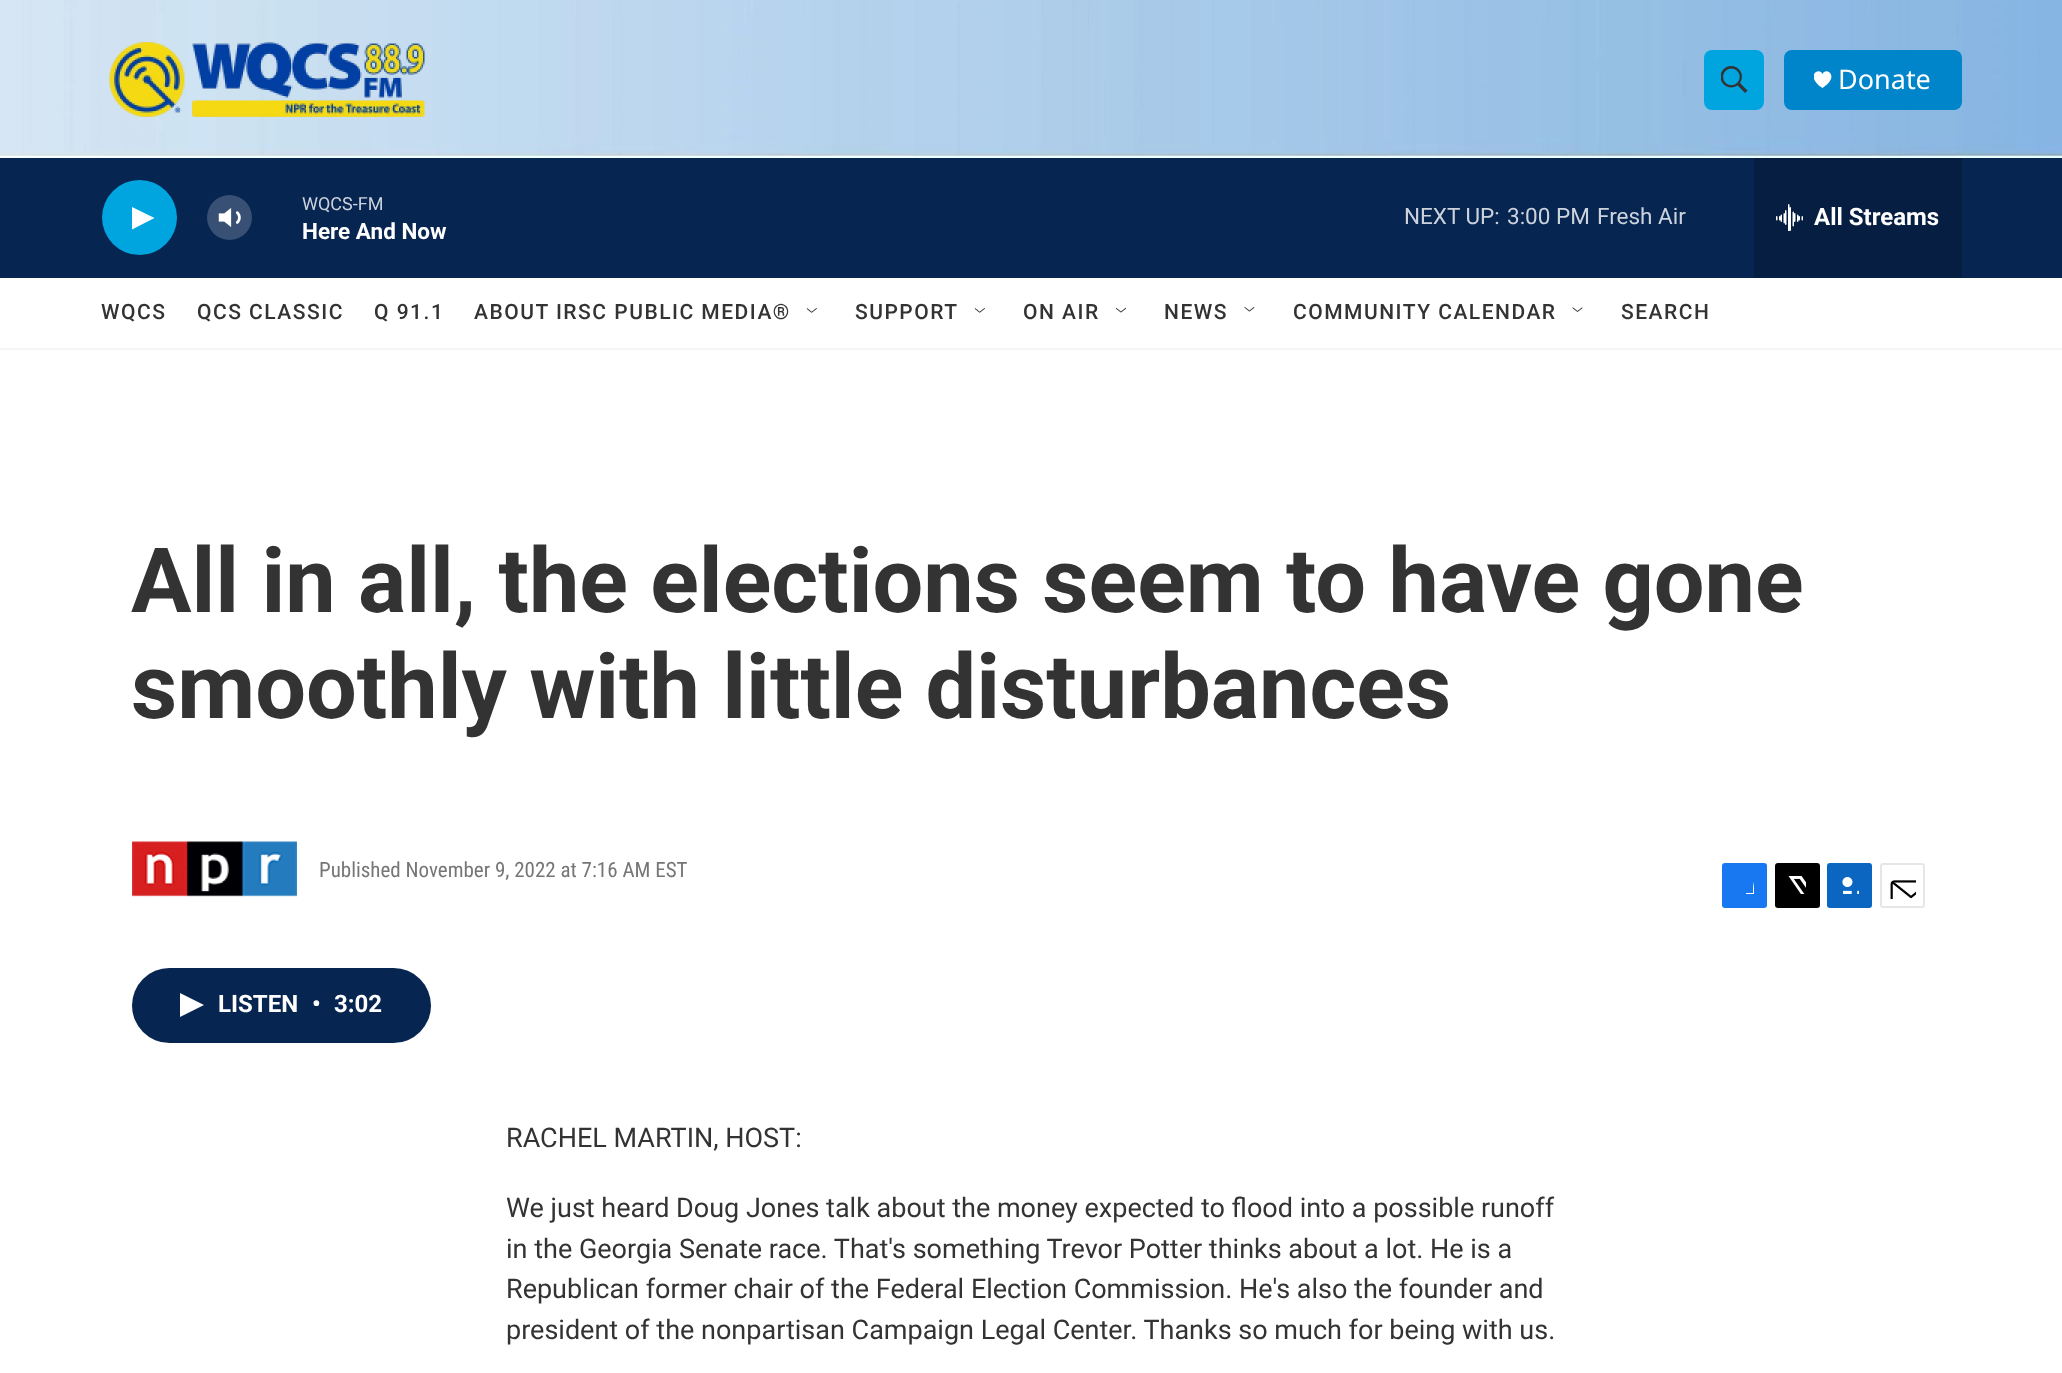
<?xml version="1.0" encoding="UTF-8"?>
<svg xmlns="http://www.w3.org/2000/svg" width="2062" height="1373">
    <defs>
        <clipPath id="clip1"><rect x="1814" y="71" width="18" height="18"/></clipPath>
        <clipPath id="clip2"><rect x="1736" y="876" width="18" height="18"/></clipPath>
    </defs>
    <rect width="100%" height="100%" fill="#FFFFFF"/>
    <rect x="0" y="348" width="2062" height="2" fill="#F5F5F5"/>
    <image x="0" y="0" width="2062" height="158" href="img_01.png"/>
    <image x="109" y="42" width="317" height="75" href="img_02.png"/>
    <rect x="1704" y="50" width="60" height="60" rx="8" fill="#00A4DF"/>
    <image x="1721" y="66" width="27" height="27" href="img_03.png"/>
    <rect x="1784" y="50" width="178" height="60" rx="8" fill="#0085CA"/>
    <g clip-path="url(#clip1)">
        <path d="M 1822.5 74 C 1819.5 66 1804 76 1822.5 88 C 1841 76 1825.5 66 1822.5 74 Z" fill="#FFFFFF"/>
    </g>
    <text x="1838" y="89" font-family="Noto Sans" font-size="27" fill="#FFFFFF">Donate</text>
    <rect x="0" y="158" width="2062" height="120" fill="#062551"/>
    <circle cx="139.5" cy="217.5" r="37.5" fill="#00A4DF"/>
    <path d="M 132 207 L 154.5 218 L 132 229.5 Z" fill="#FFFFFF"/>
    <image x="218" y="208" width="23" height="19" href="img_04.png"/>
    <circle cx="229.5" cy="217.5" r="22.5" fill="#FFFFFF" fill-opacity="0.2"/>
    <text x="302" y="210" font-family="Roboto" font-size="18" fill="#CDD3DC">WQCS-FM</text>
    <text x="302" y="239" font-family="'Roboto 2'" font-size="22.5" font-weight="700" fill="#FFFFFF">Here And Now</text>
    <text x="1404" y="224" font-family="Roboto" font-size="22.5" fill="#CDD3DC">NEXT UP:</text>
    <text x="1507" y="224" font-family="Roboto" font-size="22.5" fill="#CDD3DC">3:00 PM</text>
    <text x="1597" y="224" font-family="Roboto" font-size="22.5" fill="#CDD3DC">Fresh Air</text>
    <rect x="1754" y="158" width="208" height="120" fill="#051E41"/>
    <image x="1776" y="204" width="27" height="27" href="img_05.png"/>
    <text x="1814" y="225" font-family="'Roboto 2'" font-size="24" font-weight="700" fill="#FFFFFF">All Streams</text>
    <text x="101" y="319" font-family="Roboto" font-size="21" font-weight="500" letter-spacing="1.5" fill="#333333">WQCS</text>
    <text x="197" y="319" font-family="Roboto" font-size="21" font-weight="500" letter-spacing="1.5" fill="#333333">QCS CLASSIC</text>
    <text x="374" y="319" font-family="Roboto" font-size="21" font-weight="500" letter-spacing="1.5" fill="#333333">Q 91.1</text>
    <text x="474" y="319" font-family="Roboto" font-size="21" font-weight="500" letter-spacing="1.5" fill="#333333">ABOUT IRSC PUBLIC MEDIA®</text>
    <image x="806" y="308" width="11" height="5" href="img_06.png"/>
    <text x="855" y="319" font-family="Roboto" font-size="21" font-weight="500" letter-spacing="1.5" fill="#333333">SUPPORT</text>
    <image x="974" y="308" width="11" height="5" href="img_07.png"/>
    <text x="1023" y="319" font-family="Roboto" font-size="21" font-weight="500" letter-spacing="1.5" fill="#333333">ON AIR</text>
    <image x="1116" y="307" width="10" height="6" href="img_08.png"/>
    <text x="1164" y="319" font-family="Roboto" font-size="21" font-weight="500" letter-spacing="1.5" fill="#333333">NEWS</text>
    <image x="1244" y="306" width="11" height="6" href="img_09.png"/>
    <text x="1293" y="319" font-family="Roboto" font-size="21" font-weight="500" letter-spacing="1.5" fill="#333333">COMMUNITY CALENDAR</text>
    <image x="1572" y="307" width="11" height="5" href="img_10.png"/>
    <text x="1621" y="319" font-family="Roboto" font-size="21" font-weight="500" letter-spacing="1.5" fill="#333333">SEARCH</text>
    <text font-family="Roboto" font-size="90" font-weight="700" fill="#333333">
        <tspan x="131" y="612">All in all, the elections seem to have gone</tspan>
        <tspan x="131" y="718">smoothly with little disturbances</tspan>
    </text>
    <image x="132" y="841" width="165" height="56" href="img_11.png"/>
    <text x="319" y="877" font-family="Roboto Condensed" font-size="21" fill="#767676">Published November 9, 2022 at 7:16 AM EST</text>
    <rect x="1722" y="863" width="45" height="45" rx="3" fill="#1778F2"/>
    <g clip-path="url(#clip2)">
        <path d="M 1760 908 H 1753 V 900 H 1746 V 893 H 1753 C 1753 880.5 1754 875 1767 877 V 884 C 1758.5 884 1760 885.5 1760 893 H 1767 L 1766 900 H 1760 Z" fill="#FFFFFF"/>
    </g>
    <rect x="1775" y="863" width="45" height="45" rx="3" fill="#000000"/>
    <image x="1788" y="876" width="18" height="18" href="img_12.png"/>
    <rect x="1827" y="863" width="45" height="45" rx="3" fill="#0A66C1"/>
    <image x="1842" y="877" width="17" height="17" href="img_13.png"/>
    <rect x="1881" y="864" width="43" height="43" rx="2" fill="none" stroke="#E6E6E6" stroke-width="2"/>
    <image x="1890" y="880" width="26" height="19" href="img_14.png"/>
    <rect x="132" y="968" width="299" height="75" rx="37.5" fill="#062551"/>
    <path d="M 180 993 L 204 1005 L 180 1017 Z" fill="#FFFFFF"/>
    <text x="218" y="1012" font-family="'Roboto 2'" font-size="24" font-weight="700" fill="#FFFFFF">LISTEN</text>
    <text x="312" y="1012" font-family="'Roboto 2'" font-size="24" font-weight="700" fill="#FFFFFF">•</text>
    <text x="334" y="1012" font-family="'Roboto 2'" font-size="24" font-weight="700" fill="#FFFFFF">3:02</text>
    <text x="506" y="1147" font-family="Roboto" font-size="27" fill="#333333">RACHEL MARTIN, HOST:</text>
    <text font-family="Roboto" font-size="27" fill="#333333">
        <tspan x="506" y="1217">We just heard Doug Jones talk about the money expected to flood into a possible runoff</tspan>
        <tspan x="506" y="1258">in the Georgia Senate race. That's something Trevor Potter thinks about a lot. He is a</tspan>
        <tspan x="506" y="1298">Republican former chair of the Federal Election Commission. He's also the founder and</tspan>
        <tspan x="506" y="1339">president of the nonpartisan Campaign Legal Center. Thanks so much for being with us.</tspan>
    </text>
</svg>
